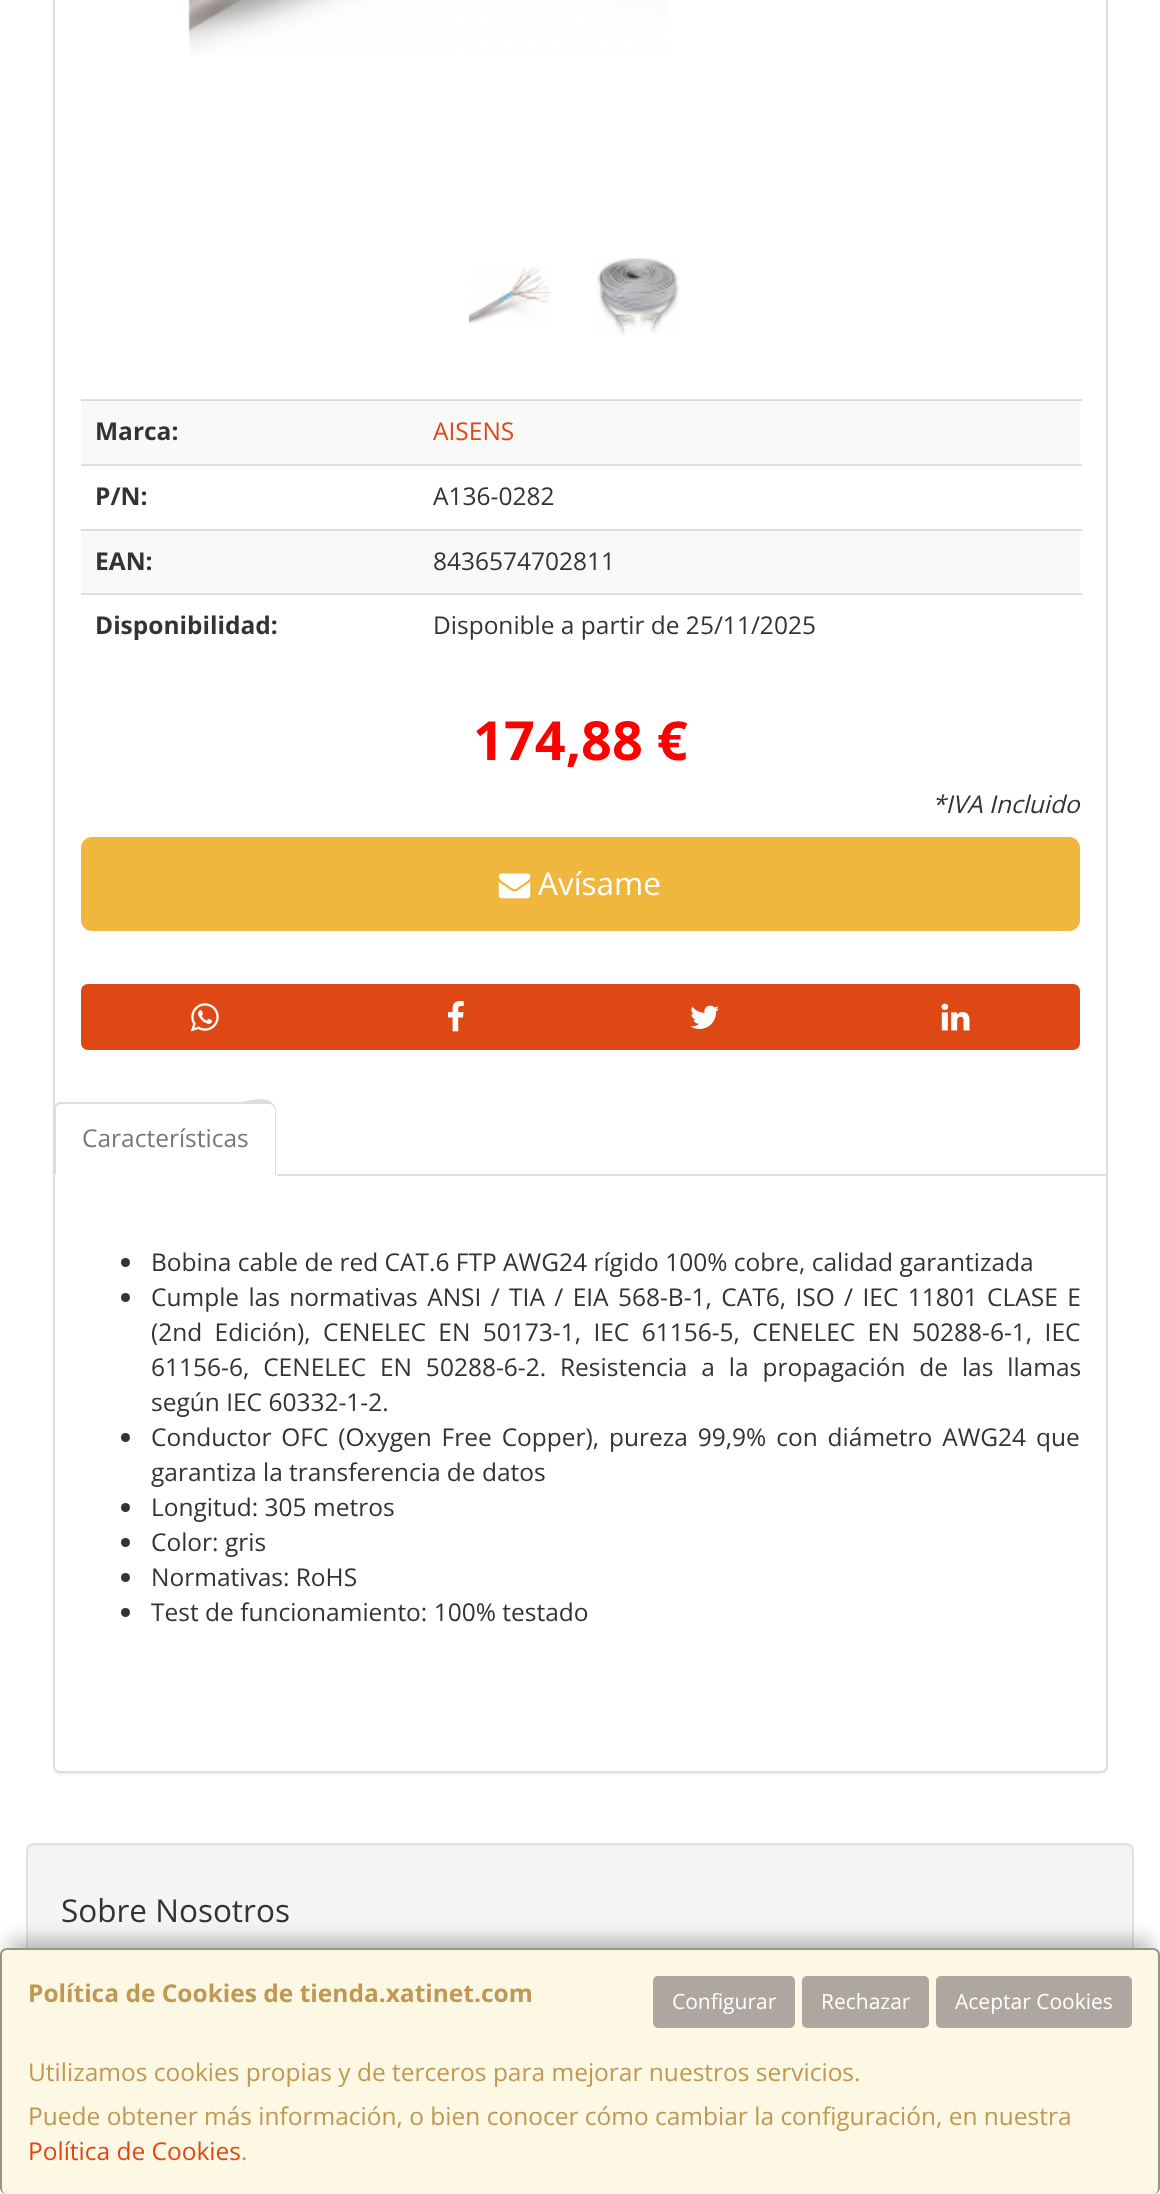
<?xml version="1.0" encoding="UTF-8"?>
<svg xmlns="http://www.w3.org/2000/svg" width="1160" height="2194">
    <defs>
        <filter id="blur1" x="-50%" y="-200%" width="200%" height="500%"><feGaussianBlur stdDeviation="1"/></filter>
        <filter id="blur2" x="-50%" y="-200%" width="200%" height="500%"><feGaussianBlur stdDeviation="9"/></filter>
    </defs>
    <rect width="100%" height="100%" fill="#FFFFFF"/>
    <rect x="53" y="-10" width="1055" height="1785" rx="7" fill="#000000" fill-opacity="0.05" filter="url(#blur1)"/>
    <rect x="54" y="-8" width="1053" height="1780" rx="6" fill="#FFFFFF" stroke="#DDDDDD" stroke-width="2"/>
    <image x="188" y="0" width="480" height="55" href="img_01.png"/>
    <image x="469" y="266" width="83" height="59" href="img_02.png"/>
    <image x="596" y="258" width="84" height="77" href="img_03.png"/>
    <rect x="81" y="401" width="999" height="63" fill="#F9F9F9"/>
    <text x="95" y="440" font-family="Open Sans" font-size="24.5" font-weight="700" fill="#333333">Marca:</text>
    <rect x="81" y="399" width="1001" height="2" fill="#DDDDDD"/>
    <text x="433" y="440" font-family="Open Sans" font-size="24.5" fill="#DD4814">AISENS</text>
    <text x="95" y="505" font-family="Open Sans" font-size="24.5" font-weight="700" fill="#333333">P/N:</text>
    <rect x="81" y="464" width="1001" height="2" fill="#DDDDDD"/>
    <text x="433" y="505" font-family="Open Sans" font-size="24.5" fill="#333333">A136-0282</text>
    <rect x="81" y="531" width="999" height="62" fill="#F9F9F9"/>
    <text x="95" y="570" font-family="Open Sans" font-size="24.5" font-weight="700" fill="#333333">EAN:</text>
    <rect x="81" y="529" width="1001" height="2" fill="#DDDDDD"/>
    <text x="433" y="570" font-family="Open Sans" font-size="24.5" fill="#333333">8436574702811</text>
    <text x="95" y="634" font-family="Open Sans" font-size="24.5" font-weight="700" fill="#333333">Disponibilidad:</text>
    <rect x="81" y="593" width="1001" height="2" fill="#DDDDDD"/>
    <text x="433" y="634" font-family="Open Sans" font-size="24.5" fill="#333333">Disponible a partir de 25/11/2025</text>
    <text x="473" y="760" font-family="Open Sans" font-size="54" font-weight="700" fill="#FF0000">174,88 €</text>
    <text x="932" y="813" font-family="Open Sans" font-size="24.5" font-style="italic" fill="#333333">*IVA Incluido</text>
    <rect x="82" y="838" width="997" height="92" rx="10" fill="#EFB73E" stroke="#EFB73E" stroke-width="2"/>
    <image x="498" y="873" width="33" height="26" href="img_04.png"/>
    <text x="538" y="895" font-family="Open Sans" font-size="31.5" fill="#FFFFFF">Avísame</text>
    <path d="M 88 985 H 330 V 1049 H 88 C 84.5 1049 82 1046.5 82 1043 V 991 C 82 987.5 84.5 985 88 985 Z" fill="#DD4814" stroke="#DD4814" stroke-width="2"/>
    <image x="190" y="1003" width="29" height="29" href="img_05.png"/>
    <rect x="331" y="984" width="499" height="66" fill="#DD4814"/>
    <image x="448" y="1001" width="16" height="31" href="img_06.png"/>
    <path d="M 831 985 H 1073 C 1076.5 985 1079 987.5 1079 991 V 1043 C 1079 1046.5 1076.5 1049 1073 1049 H 831 Z" fill="#DD4814" stroke="#DD4814" stroke-width="2"/>
    <image x="941" y="1003" width="29" height="28" href="img_07.png"/>
    <image x="690" y="1005" width="29" height="24" href="img_08.png"/>
    <rect x="277" y="1174" width="829" height="2" fill="#DDDDDD"/>
    <path d="M 61 1103 H 270 C 274 1103 277 1106 277 1110 V 1176 H 54 V 1110 C 54 1106 57 1103 61 1103 Z" fill="#FFFFFF"/>
    <path d="M 61 1104 C 60 1104 58 1105 57 1106 L 56 1104 L 59 1102 H 236 C 249 1102 267 1094 274 1105 L 273 1106 C 272 1105 271 1104 270 1104 Z" fill="#DDDDDD"/>
    <path d="M 274 1105 C 275 1106 276 1108 276 1110 V 1176 L 274 1174 H 275 V 1110 C 275 1108 274 1107 273 1106 Z" fill="#DDDDDD"/>
    <path d="M 54 1176 V 1108 L 56 1104 L 57 1106 C 57 1107 56 1108 56 1110 V 1174 Z" fill="#DDDDDD"/>
    <text x="82" y="1147" font-family="Open Sans" font-size="24.5" fill="#777777">Características</text>
    <circle cx="125.5" cy="1262.5" r="4.5" fill="#333333"/>
    <text x="151" y="1271" font-family="Open Sans" font-size="24.5" fill="#333333">Bobina cable de red CAT.6 FTP AWG24 rígido 100% cobre, calidad garantizada</text>
    <circle cx="125.5" cy="1297.5" r="4.5" fill="#333333"/>
    <text font-family="Open Sans" font-size="24.5" fill="#333333">
        <tspan x="151" y="1306" word-spacing="3">Cumple las normativas ANSI / TIA / EIA 568-B-1, CAT6, ISO / IEC 11801 CLASE E</tspan>
        <tspan x="151" y="1341" word-spacing="6">(2nd Edición), CENELEC EN 50173-1, IEC 61156-5, CENELEC EN 50288-6-1, IEC</tspan>
        <tspan x="151" y="1376" word-spacing="7.5">61156-6, CENELEC EN 50288-6-2. Resistencia a la propagación de las llamas</tspan>
        <tspan x="151" y="1411">según IEC 60332-1-2.</tspan>
    </text>
    <circle cx="125.5" cy="1437.5" r="4.5" fill="#333333"/>
    <text font-family="Open Sans" font-size="24.5" fill="#333333">
        <tspan x="151" y="1446" word-spacing="3.5">Conductor OFC (Oxygen Free Copper), pureza 99,9% con diámetro AWG24 que</tspan>
        <tspan x="151" y="1481">garantiza la transferencia de datos</tspan>
    </text>
    <circle cx="125.5" cy="1507.5" r="4.5" fill="#333333"/>
    <text x="151" y="1516" font-family="Open Sans" font-size="24.5" fill="#333333">Longitud: 305 metros</text>
    <circle cx="125.5" cy="1542.5" r="4.5" fill="#333333"/>
    <text x="151" y="1551" font-family="Open Sans" font-size="24.5" fill="#333333">Color: gris</text>
    <circle cx="125.5" cy="1577.5" r="4.5" fill="#333333"/>
    <text x="151" y="1586" font-family="Open Sans" font-size="24.5" fill="#333333">Normativas: RoHS</text>
    <circle cx="125.5" cy="1612.5" r="4.5" fill="#333333"/>
    <text x="151" y="1621" font-family="Open Sans" font-size="24.5" fill="#333333">Test de funcionamiento: 100% testado</text>
    <rect x="26" y="1843" width="1108" height="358" rx="7" fill="#F5F5F5"/>
    <path d="M 33 1846 H 1127 C 1130 1846 1132 1849 1132 1852 V 1850 C 1132 1847 1130 1845 1127 1845 H 33 C 30 1845 28 1847 28 1850 V 1852 C 28 1849 30 1846 33 1846 Z" fill="#E9E9E9"/>
    <rect x="27" y="1844" width="1106" height="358" rx="6" fill="none" stroke="#E3E3E3" stroke-width="2"/>
    <text x="61" y="1922" font-family="Open Sans" font-size="31.5" fill="#333333">Sobre Nosotros</text>
    <rect x="9" y="1939" width="1143" height="229" fill="#000000" fill-opacity="0.25" filter="url(#blur2)"/>
    <rect x="0" y="1948" width="1160" height="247" rx="7" fill="#FCF8E3"/>
    <path d="M 7 1948 H 1153 C 1157 1948 1160 1951 1160 1955 V 2188 C 1160 2191 1157 2194 1153 2194 H 7 C 3 2194 0 2191 0 2188 V 1955 C 0 1951 3 1948 7 1948 Z M 7 1950 H 1153 C 1156 1950 1158 1952 1158 1955 V 2188 C 1158 2191 1156 2194 1153 2194 H 7 C 4 2194 2 2191 2 2188 V 1955 C 2 1952 4 1950 7 1950 Z" fill="#000000" fill-opacity="0.4" fill-rule="evenodd"/>
    <text x="28" y="2002" font-family="Open Sans" font-size="24.5" font-weight="700" fill="#C09853">Política de Cookies de tienda.xatinet.com</text>
    <rect x="654" y="1977" width="140" height="50" rx="4" fill="#AEA79F" stroke="#AEA79F" stroke-width="2"/>
    <text x="672" y="2009" font-family="Open Sans" font-size="21" fill="#FFFFFF">Configurar</text>
    <rect x="803" y="1977" width="125" height="50" rx="4" fill="#AEA79F" stroke="#AEA79F" stroke-width="2"/>
    <text x="821" y="2009" font-family="Open Sans" font-size="21" fill="#FFFFFF">Rechazar</text>
    <rect x="937" y="1977" width="194" height="50" rx="4" fill="#AEA79F" stroke="#AEA79F" stroke-width="2"/>
    <text x="955" y="2009" font-family="Open Sans" font-size="21" fill="#FFFFFF">Aceptar Cookies</text>
    <text font-family="Open Sans" font-size="24.5" fill="#C09853">
        <tspan x="28" y="2081">Utilizamos cookies propias y de terceros para mejorar nuestros servicios.</tspan>
        <tspan x="28" y="2125">Puede obtener más información, o bien conocer cómo cambiar la configuración, en nuestra</tspan>
    </text>
    <text x="28" y="2160" font-family="Open Sans" font-size="24.5" fill="#DD4814">Política de Cookies</text>
    <text x="241" y="2160" font-family="Open Sans" font-size="24.5" fill="#C09853">.</text>
</svg>
